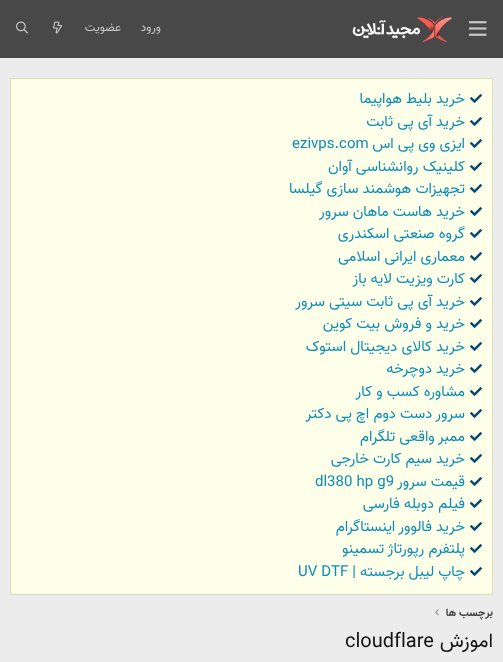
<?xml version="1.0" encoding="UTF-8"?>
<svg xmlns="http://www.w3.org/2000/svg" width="503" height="662">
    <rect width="100%" height="100%" fill="#ECECEC"/>
    <rect x="0" y="0" width="503" height="58" fill="#484848"/>
    <image x="469" y="21" width="18" height="15" href="img_01.png"/>
    <image x="352" y="16" width="100" height="27" href="img_02.png"/>
    <text x="161" y="31" font-family="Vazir" font-size="12" direction="rtl" fill="#C8C8C8">ورود</text>
    <text x="121" y="31" font-family="Vazir" font-size="12" direction="rtl" fill="#C8C8C8">عضویت</text>
    <image x="53" y="21" width="9" height="13" href="img_03.png"/>
    <image x="16" y="21" width="12" height="13" href="img_04.png"/>
    <rect x="10.5" y="78.5" width="482" height="516" fill="#FEFFE8" stroke="#DCDEB5"/>
    <image x="470" y="94" width="12" height="9" href="img_05.png"/>
    <text x="465" y="103" font-family="Vazir" font-size="15" direction="rtl" fill="#0B8CB7">خرید بلیط هواپیما</text>
    <image x="470" y="117" width="12" height="9" href="img_05.png"/>
    <text x="465" y="126" font-family="Vazir" font-size="15" direction="rtl" fill="#0B8CB7">خرید آی پی ثابت</text>
    <image x="470" y="139" width="12" height="9" href="img_05.png"/>
    <text x="465" y="148" font-family="Vazir" font-size="15" direction="rtl" fill="#0B8CB7">ایزی وی پی اس</text>
    <text x="292" y="148" font-family="Vazir" font-size="15" fill="#0B8CB7">ezivps.com</text>
    <image x="470" y="162" width="12" height="9" href="img_05.png"/>
    <text x="465" y="171" font-family="Vazir" font-size="15" direction="rtl" fill="#0B8CB7">کلینیک روانشناسی آوان</text>
    <image x="470" y="184" width="12" height="9" href="img_05.png"/>
    <text x="465" y="193" font-family="Vazir" font-size="15" direction="rtl" fill="#0B8CB7">تجهیزات هوشمند سازی گیلسا</text>
    <image x="470" y="207" width="12" height="9" href="img_05.png"/>
    <text x="465" y="216" font-family="Vazir" font-size="15" direction="rtl" fill="#0B8CB7">خرید هاست ماهان سرور</text>
    <image x="470" y="229" width="12" height="9" href="img_05.png"/>
    <text x="465" y="238" font-family="Vazir" font-size="15" direction="rtl" fill="#0B8CB7">گروه صنعتی اسکندری</text>
    <image x="470" y="252" width="12" height="9" href="img_05.png"/>
    <text x="465" y="261" font-family="Vazir" font-size="15" direction="rtl" fill="#0B8CB7">معماری ایرانی اسلامی</text>
    <image x="470" y="274" width="12" height="9" href="img_05.png"/>
    <text x="465" y="283" font-family="Vazir" font-size="15" direction="rtl" fill="#0B8CB7">کارت ویزیت لایه باز</text>
    <image x="470" y="297" width="12" height="9" href="img_05.png"/>
    <text x="465" y="306" font-family="Vazir" font-size="15" direction="rtl" fill="#0B8CB7">خرید آی پی ثابت سیتی سرور</text>
    <image x="470" y="319" width="12" height="9" href="img_05.png"/>
    <text x="465" y="328" font-family="Vazir" font-size="15" direction="rtl" fill="#0B8CB7">خرید و فروش بیت کوین</text>
    <image x="470" y="342" width="12" height="9" href="img_05.png"/>
    <text x="465" y="351" font-family="Vazir" font-size="15" direction="rtl" fill="#0B8CB7">خرید کالای دیجیتال استوک</text>
    <image x="470" y="364" width="12" height="9" href="img_05.png"/>
    <text x="465" y="373" font-family="Vazir" font-size="15" direction="rtl" fill="#0B8CB7">خرید دوچرخه</text>
    <image x="470" y="387" width="12" height="9" href="img_05.png"/>
    <text x="465" y="396" font-family="Vazir" font-size="15" direction="rtl" fill="#0B8CB7">مشاوره کسب و کار</text>
    <image x="470" y="409" width="12" height="9" href="img_05.png"/>
    <text x="465" y="418" font-family="Vazir" font-size="15" direction="rtl" fill="#0B8CB7">سرور دست دوم اچ پی دکتر</text>
    <image x="470" y="432" width="12" height="9" href="img_05.png"/>
    <text x="465" y="441" font-family="Vazir" font-size="15" direction="rtl" fill="#0B8CB7">ممبر واقعی تلگرام</text>
    <image x="470" y="454" width="12" height="9" href="img_05.png"/>
    <text x="465" y="463" font-family="Vazir" font-size="15" direction="rtl" fill="#0B8CB7">خرید سیم کارت خارجی</text>
    <image x="470" y="477" width="12" height="9" href="img_05.png"/>
    <text x="465" y="486" font-family="Vazir" font-size="15" direction="rtl" fill="#0B8CB7">قیمت سرور</text>
    <text x="315" y="486" font-family="Vazir" font-size="15" fill="#0B8CB7">dl380 hp g9</text>
    <image x="470" y="499" width="12" height="9" href="img_05.png"/>
    <text x="465" y="508" font-family="Vazir" font-size="15" direction="rtl" fill="#0B8CB7">فیلم دوبله فارسی</text>
    <image x="470" y="522" width="12" height="9" href="img_05.png"/>
    <text x="465" y="531" font-family="Vazir" font-size="15" direction="rtl" fill="#0B8CB7">خرید فالوور اینستاگرام</text>
    <image x="470" y="544" width="12" height="9" href="img_05.png"/>
    <text x="465" y="553" font-family="Vazir" font-size="15" direction="rtl" fill="#0B8CB7">پلتفرم رپورتاژ تسمینو</text>
    <image x="470" y="567" width="12" height="9" href="img_05.png"/>
    <text x="465" y="576" font-family="Vazir" font-size="15" direction="rtl" fill="#0B8CB7">چاپ لیبل برجسته |</text>
    <text x="298" y="576" font-family="Vazir" font-size="15" fill="#0B8CB7">UV DTF</text>
    <text x="493" y="616" font-family="Vazir" font-size="11" font-weight="700" direction="rtl" fill="#444444">برچسب ها</text>
    <image x="435" y="609" width="4" height="7" href="img_06.png"/>
    <text x="493" y="647" font-family="Vazir" font-size="20" direction="rtl" fill="#141414">اموزش</text>
    <text x="345" y="647" font-family="Vazir" font-size="20" fill="#141414">cloudflare</text>
</svg>
